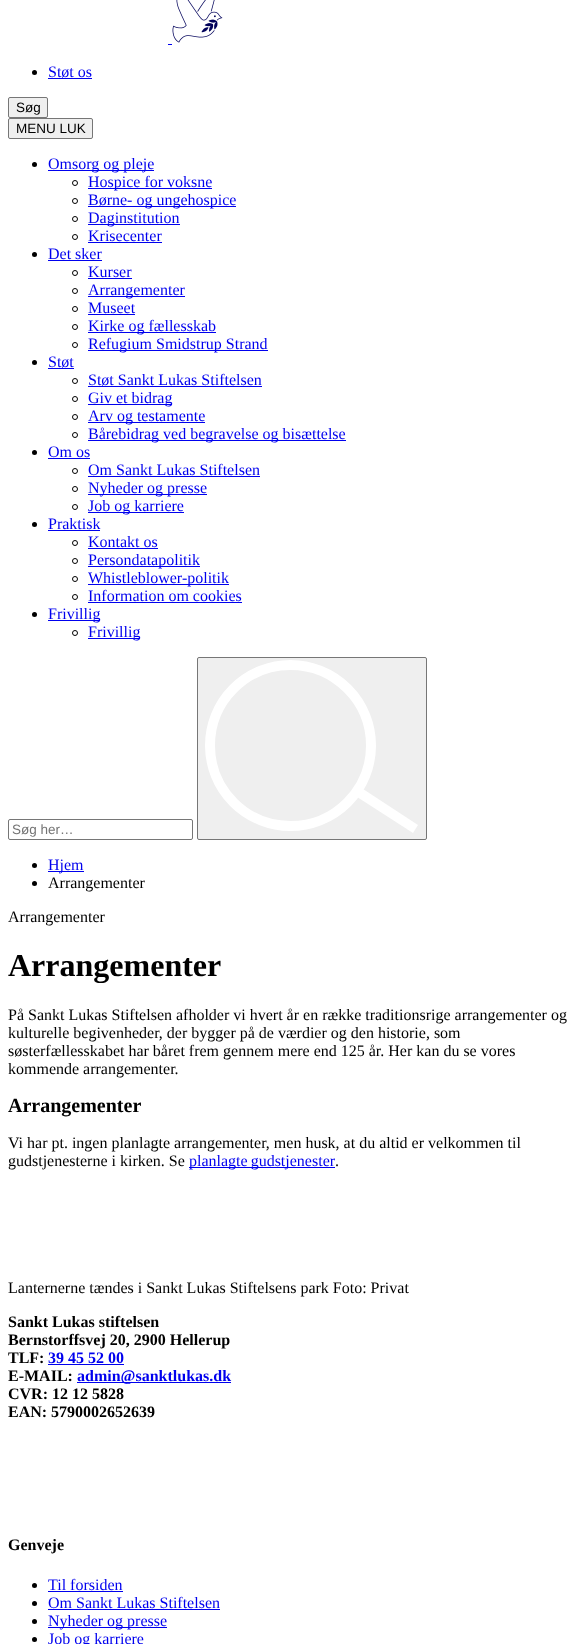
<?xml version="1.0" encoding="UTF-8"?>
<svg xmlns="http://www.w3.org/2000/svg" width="583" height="1644">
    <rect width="100%" height="100%" fill="#FFFFFF"/>
    <image x="172" y="0" width="51" height="43" href="img_01.png"/>
    <rect x="168" y="44" width="4" height="1" fill="#0000EE"/>
    <circle cx="34.5" cy="72.5" r="2.5" fill="#000000"/>
    <text x="48" y="77" font-family="Liberation Serif" font-size="16" fill="#0000EE">Støt os</text>
    <rect x="48" y="78" width="44" height="1" fill="#0000EE"/>
    <rect x="8.5" y="97.5" width="39" height="20" rx="1.5" fill="#EFEFEF" stroke="#767676"/>
    <text x="16" y="112" font-family="Liberation Sans" font-size="13.5" fill="#000000">Søg</text>
    <rect x="8.5" y="118.5" width="84" height="20" rx="1.5" fill="#EFEFEF" stroke="#767676"/>
    <text x="16" y="133" font-family="Liberation Sans" font-size="13.5" fill="#000000">MENU LUK</text>
    <circle cx="34.5" cy="164.5" r="2.5" fill="#000000"/>
    <rect x="48" y="170" width="106" height="1" fill="#0000EE"/>
    <text x="48" y="169" font-family="Liberation Serif" font-size="16" fill="#0000EE">Omsorg og pleje</text>
    <circle cx="75" cy="183" r="2.5" fill="none" stroke="#000000"/>
    <rect x="88" y="188" width="124" height="1" fill="#0000EE"/>
    <text x="88" y="187" font-family="Liberation Serif" font-size="16" fill="#0000EE">Hospice for voksne</text>
    <circle cx="75" cy="201" r="2.5" fill="none" stroke="#000000"/>
    <rect x="88" y="206" width="148" height="1" fill="#0000EE"/>
    <text x="88" y="205" font-family="Liberation Serif" font-size="16" fill="#0000EE">Børne- og ungehospice</text>
    <circle cx="75" cy="219" r="2.5" fill="none" stroke="#000000"/>
    <rect x="88" y="224" width="92" height="1" fill="#0000EE"/>
    <text x="88" y="223" font-family="Liberation Serif" font-size="16" fill="#0000EE">Daginstitution</text>
    <circle cx="75" cy="237" r="2.5" fill="none" stroke="#000000"/>
    <text x="88" y="241" font-family="Liberation Serif" font-size="16" fill="#0000EE">Krisecenter</text>
    <rect x="88" y="242" width="74" height="1" fill="#0000EE"/>
    <circle cx="34.5" cy="254.5" r="2.5" fill="#000000"/>
    <text x="48" y="259" font-family="Liberation Serif" font-size="16" fill="#0000EE">Det sker</text>
    <rect x="48" y="260" width="54" height="1" fill="#0000EE"/>
    <circle cx="75" cy="273" r="2.5" fill="none" stroke="#000000"/>
    <text x="88" y="277" font-family="Liberation Serif" font-size="16" fill="#0000EE">Kurser</text>
    <rect x="88" y="278" width="44" height="1" fill="#0000EE"/>
    <circle cx="75" cy="291" r="2.5" fill="none" stroke="#000000"/>
    <rect x="88" y="296" width="97" height="1" fill="#0000EE"/>
    <text x="88" y="295" font-family="Liberation Serif" font-size="16" fill="#0000EE">Arrangementer</text>
    <circle cx="75" cy="309" r="2.5" fill="none" stroke="#000000"/>
    <text x="88" y="313" font-family="Liberation Serif" font-size="16" fill="#0000EE">Museet</text>
    <rect x="88" y="314" width="47" height="1" fill="#0000EE"/>
    <circle cx="75" cy="327" r="2.5" fill="none" stroke="#000000"/>
    <rect x="88" y="332" width="128" height="1" fill="#0000EE"/>
    <text x="88" y="331" font-family="Liberation Serif" font-size="16" fill="#0000EE">Kirke og fællesskab</text>
    <circle cx="75" cy="345" r="2.5" fill="none" stroke="#000000"/>
    <rect x="88" y="350" width="180" height="1" fill="#0000EE"/>
    <text x="88" y="349" font-family="Liberation Serif" font-size="16" fill="#0000EE">Refugium Smidstrup Strand</text>
    <circle cx="34.5" cy="362.5" r="2.5" fill="#000000"/>
    <text x="48" y="367" font-family="Liberation Serif" font-size="16" fill="#0000EE">Støt</text>
    <rect x="48" y="368" width="26" height="1" fill="#0000EE"/>
    <circle cx="75" cy="381" r="2.5" fill="none" stroke="#000000"/>
    <text x="88" y="385" font-family="Liberation Serif" font-size="16" fill="#0000EE">Støt Sankt Lukas Stiftelsen</text>
    <rect x="88" y="386" width="174" height="1" fill="#0000EE"/>
    <circle cx="75" cy="399" r="2.5" fill="none" stroke="#000000"/>
    <rect x="88" y="404" width="84" height="1" fill="#0000EE"/>
    <text x="88" y="403" font-family="Liberation Serif" font-size="16" fill="#0000EE">Giv et bidrag</text>
    <circle cx="75" cy="417" r="2.5" fill="none" stroke="#000000"/>
    <rect x="88" y="422" width="117" height="1" fill="#0000EE"/>
    <text x="88" y="421" font-family="Liberation Serif" font-size="16" fill="#0000EE">Arv og testamente</text>
    <circle cx="75" cy="435" r="2.5" fill="none" stroke="#000000"/>
    <rect x="88" y="440" width="258" height="1" fill="#0000EE"/>
    <text x="88" y="439" font-family="Liberation Serif" font-size="16" fill="#0000EE">Bårebidrag ved begravelse og bisættelse</text>
    <circle cx="34.5" cy="452.5" r="2.5" fill="#000000"/>
    <text x="48" y="457" font-family="Liberation Serif" font-size="16" fill="#0000EE">Om os</text>
    <rect x="48" y="458" width="42" height="1" fill="#0000EE"/>
    <circle cx="75" cy="471" r="2.5" fill="none" stroke="#000000"/>
    <text x="88" y="475" font-family="Liberation Serif" font-size="16" fill="#0000EE">Om Sankt Lukas Stiftelsen</text>
    <rect x="88" y="476" width="172" height="1" fill="#0000EE"/>
    <circle cx="75" cy="489" r="2.5" fill="none" stroke="#000000"/>
    <rect x="88" y="494" width="119" height="1" fill="#0000EE"/>
    <text x="88" y="493" font-family="Liberation Serif" font-size="16" fill="#0000EE">Nyheder og presse</text>
    <circle cx="75" cy="507" r="2.5" fill="none" stroke="#000000"/>
    <rect x="88" y="512" width="96" height="1" fill="#0000EE"/>
    <text x="88" y="511" font-family="Liberation Serif" font-size="16" fill="#0000EE">Job og karriere</text>
    <circle cx="34.5" cy="524.5" r="2.5" fill="#000000"/>
    <text x="48" y="529" font-family="Liberation Serif" font-size="16" fill="#0000EE">Praktisk</text>
    <rect x="48" y="530" width="52" height="1" fill="#0000EE"/>
    <circle cx="75" cy="543" r="2.5" fill="none" stroke="#000000"/>
    <text x="88" y="547" font-family="Liberation Serif" font-size="16" fill="#0000EE">Kontakt os</text>
    <rect x="88" y="548" width="70" height="1" fill="#0000EE"/>
    <circle cx="75" cy="561" r="2.5" fill="none" stroke="#000000"/>
    <rect x="88" y="566" width="112" height="1" fill="#0000EE"/>
    <text x="88" y="565" font-family="Liberation Serif" font-size="16" fill="#0000EE">Persondatapolitik</text>
    <circle cx="75" cy="579" r="2.5" fill="none" stroke="#000000"/>
    <rect x="88" y="584" width="141" height="1" fill="#0000EE"/>
    <text x="88" y="583" font-family="Liberation Serif" font-size="16" fill="#0000EE">Whistleblower-politik</text>
    <circle cx="75" cy="597" r="2.5" fill="none" stroke="#000000"/>
    <text x="88" y="601" font-family="Liberation Serif" font-size="16" fill="#0000EE">Information om cookies</text>
    <rect x="88" y="602" width="154" height="1" fill="#0000EE"/>
    <circle cx="34.5" cy="614.5" r="2.5" fill="#000000"/>
    <rect x="48" y="620" width="52" height="1" fill="#0000EE"/>
    <text x="48" y="619" font-family="Liberation Serif" font-size="16" fill="#0000EE">Frivillig</text>
    <circle cx="75" cy="633" r="2.5" fill="none" stroke="#000000"/>
    <rect x="88" y="638" width="52" height="1" fill="#0000EE"/>
    <text x="88" y="637" font-family="Liberation Serif" font-size="16" fill="#0000EE">Frivillig</text>
    <rect x="8.5" y="819.5" width="184" height="20" rx="1.5" fill="none" stroke="#767676"/>
    <text x="12" y="834" font-family="Liberation Sans" font-size="13.5" fill="#757575">Søg her…</text>
    <rect x="197.5" y="657.5" width="229" height="182" rx="1.5" fill="#EFEFEF" stroke="#767676"/>
    <circle cx="290.5" cy="745.5" r="80.5" fill="none" stroke="#FFFFFF" stroke-width="10"/>
    <path d="M 360 787 L 418 825 L 413 833 L 354 795 Z" fill="#FFFFFF" fill-rule="evenodd"/>
    <circle cx="34.5" cy="865.5" r="2.5" fill="#000000"/>
    <rect x="48" y="871" width="36" height="1" fill="#0000EE"/>
    <text x="48" y="870" font-family="Liberation Serif" font-size="16" fill="#0000EE">Hjem</text>
    <circle cx="34.5" cy="883.5" r="2.5" fill="#000000"/>
    <text x="48" y="888" font-family="Liberation Serif" font-size="16" fill="#000000">Arrangementer</text>
    <text x="8" y="922" font-family="Liberation Serif" font-size="16" fill="#000000">Arrangementer</text>
    <text x="8" y="976" font-family="Liberation Serif" font-size="32" font-weight="700" fill="#000000">Arrangementer</text>
    <text font-family="Liberation Serif" font-size="16" fill="#000000">
        <tspan x="8" y="1020">På Sankt Lukas Stiftelsen afholder vi hvert år en række traditionsrige arrangementer og</tspan>
        <tspan x="8" y="1038">kulturelle begivenheder, der bygger på de værdier og den historie, som</tspan>
        <tspan x="8" y="1056">søsterfællesskabet har båret frem gennem mere end 125 år. Her kan du se vores</tspan>
        <tspan x="8" y="1074">kommende arrangementer.</tspan>
    </text>
    <text x="8" y="1112" font-family="Liberation Serif" font-size="20" font-weight="700" fill="#000000">Arrangementer</text>
    <text font-family="Liberation Serif" font-size="16" fill="#000000">
        <tspan x="8" y="1148">Vi har pt. ingen planlagte arrangementer, men husk, at du altid er velkommen til</tspan>
        <tspan x="8" y="1166">gudstjenesterne i kirken. Se</tspan>
    </text>
    <rect x="189" y="1167" width="146" height="1" fill="#0000EE"/>
    <text x="189" y="1166" word-spacing="-1" font-family="Liberation Serif" font-size="16" fill="#0000EE">planlagte gudstjenester</text>
    <text x="335" y="1166" font-family="Liberation Serif" font-size="16" fill="#000000">.</text>
    <text x="8" y="1293" font-family="Liberation Serif" font-size="16" fill="#000000">Lanternerne tændes i Sankt Lukas Stiftelsens park Foto: Privat</text>
    <text font-family="Liberation Serif" font-size="16" font-weight="700" fill="#000000">
        <tspan x="8" y="1327">Sankt Lukas stiftelsen</tspan>
        <tspan x="8" y="1345">Bernstorffsvej 20, 2900 Hellerup</tspan>
        <tspan x="8" y="1363">TLF:</tspan>
    </text>
    <text x="48" y="1363" font-family="Liberation Serif" font-size="16" font-weight="700" fill="#0000EE">39 45 52 00</text>
    <rect x="48" y="1364" width="76" height="1" fill="#0000EE"/>
    <text x="8" y="1381" font-family="Liberation Serif" font-size="16" font-weight="700" fill="#000000">E-MAIL:</text>
    <rect x="77" y="1382" width="154" height="1" fill="#0000EE"/>
    <text x="77" y="1381" font-family="Liberation Serif" font-size="16" font-weight="700" fill="#0000EE">admin@sanktlukas.dk</text>
    <text font-family="Liberation Serif" font-size="16" font-weight="700" fill="#000000">
        <tspan x="8" y="1399">CVR: 12 12 5828</tspan>
        <tspan x="8" y="1417">EAN: 5790002652639</tspan>
    </text>
    <text x="8" y="1550" font-family="Liberation Serif" font-size="16" font-weight="700" fill="#000000">Genveje</text>
    <circle cx="34.5" cy="1585.5" r="2.5" fill="#000000"/>
    <text x="48" y="1590" font-family="Liberation Serif" font-size="16" fill="#0000EE">Til forsiden</text>
    <rect x="48" y="1591" width="75" height="1" fill="#0000EE"/>
    <circle cx="34.5" cy="1603.5" r="2.5" fill="#000000"/>
    <text x="48" y="1608" font-family="Liberation Serif" font-size="16" fill="#0000EE">Om Sankt Lukas Stiftelsen</text>
    <rect x="48" y="1609" width="172" height="1" fill="#0000EE"/>
    <circle cx="34.5" cy="1621.5" r="2.5" fill="#000000"/>
    <rect x="48" y="1627" width="119" height="1" fill="#0000EE"/>
    <text x="48" y="1626" font-family="Liberation Serif" font-size="16" fill="#0000EE">Nyheder og presse</text>
    <circle cx="34.5" cy="1639.5" r="2.5" fill="#000000"/>
    <text x="48" y="1644" font-family="Liberation Serif" font-size="16" fill="#0000EE">Job og karriere</text>
</svg>
